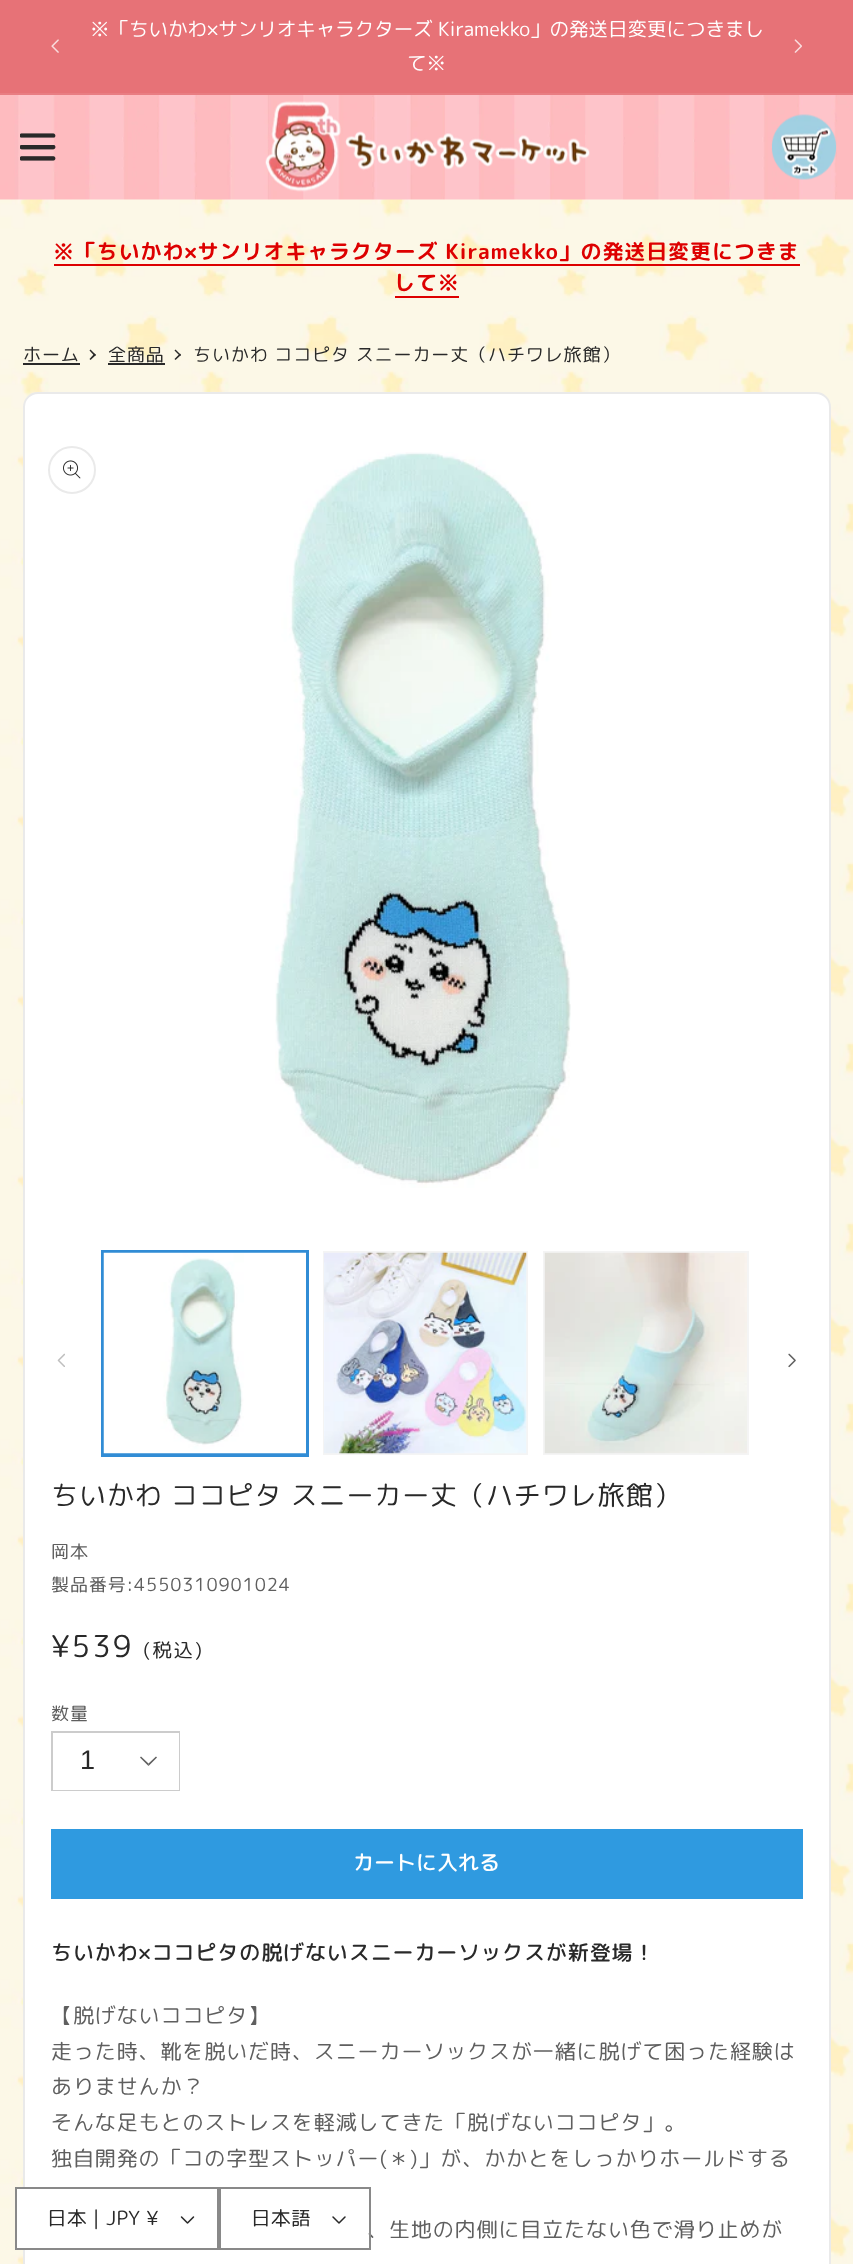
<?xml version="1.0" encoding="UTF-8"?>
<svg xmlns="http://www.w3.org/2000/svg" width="853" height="2264">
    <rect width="100%" height="100%" fill="#FFFFFF"/>
    <image x="0" y="199" width="853" height="2065" href="img_01.png"/>
    <rect x="0" y="0" width="853" height="93" fill="#E77277"/>
    <rect x="0" y="93" width="853" height="2" fill="#E97D82"/>
    <image x="51" y="39" width="8" height="14" href="img_02.png"/>
    <text x="90" y="36" font-family="'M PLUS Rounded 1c'" font-size="19.5" fill="#FFFFFF">※「ちいかわ×サンリオキャラクターズ Kiramekko」の発送日変更につきまし</text>
    <text x="407" y="70" font-family="'M PLUS Rounded 1c'" font-size="19.5" fill="#FFFFFF">て※</text>
    <image x="794" y="39" width="8" height="14" href="img_03.png"/>
    <image x="0" y="95" width="853" height="105" href="img_04.png"/>
    <image x="20" y="133" width="36" height="28" href="img_05.png"/>
    <image x="265" y="101" width="325" height="91" href="img_06.png"/>
    <image x="771" y="114" width="66" height="66" href="img_07.png"/>
    <text x="53" y="259" font-family="'M PLUS Rounded 1c'" font-size="21" font-weight="700" letter-spacing="0.9" fill="#DD0000">※「ちいかわ×サンリオキャラクターズ Kiramekko」の発送日変更につきま</text>
    <rect x="54" y="264" width="746" height="2" fill="#DD0000"/>
    <text x="394" y="290" font-family="'M PLUS Rounded 1c'" font-size="21" font-weight="700" letter-spacing="0.9" fill="#DD0000">して※</text>
    <rect x="395" y="296" width="64" height="2" fill="#DD0000"/>
    <text x="23" y="361" font-family="'M PLUS Rounded 1c'" font-size="18" letter-spacing="0.9" fill="#292929">ホーム</text>
    <rect x="23" y="363" width="57" height="2" fill="#292929"/>
    <path d="M 89.5 350.5 L 90.5 349.5 L 96 355 L 94.5 356 Z" fill="#292929"/>
    <path d="M 89.5 359 L 94.5 353.5 L 96 355 L 90.5 360 Z" fill="#292929"/>
    <text x="108" y="361" font-family="'M PLUS Rounded 1c'" font-size="18" letter-spacing="0.9" fill="#292929">全商品</text>
    <rect x="108" y="363" width="57" height="2" fill="#292929"/>
    <path d="M 174.5 350.5 L 175.5 349.5 L 181 355 L 180 356 Z" fill="#292929"/>
    <path d="M 174.5 359 L 180 353.5 L 181 355 L 175.5 360 Z" fill="#292929"/>
    <text x="193" y="361" font-family="'M PLUS Rounded 1c'" font-size="18" letter-spacing="0.9" fill="#292929">ちいかわ ココピタ スニーカー丈（ハチワレ旅館）</text>
    <rect x="24" y="393" width="806" height="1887" rx="14" fill="#FFFFFF" stroke="#EAEAEA" stroke-width="2"/>
    <circle cx="72" cy="470" r="23" fill="none" stroke="#EAEAEA" stroke-width="2"/>
    <image x="63" y="460" width="18" height="19" href="img_08.png"/>
    <image x="275" y="452" width="296" height="736" href="img_09.png"/>
    <image x="57" y="1353" width="8" height="14" href="img_10.png"/>
    <rect x="102" y="1251" width="206" height="205" fill="none" stroke="#318CD5" stroke-width="2"/>
    <rect x="103" y="1252" width="204" height="202" fill="none" stroke="#318CD5" stroke-width="2"/>
    <image x="103" y="1252" width="203" height="202" href="img_11.png"/>
    <rect x="324" y="1252" width="203" height="202" fill="none" stroke="#F4F4F4" stroke-width="2"/>
    <image x="324" y="1252" width="203" height="202" href="img_12.png"/>
    <rect x="544" y="1252" width="204" height="202" fill="none" stroke="#F4F4F4" stroke-width="2"/>
    <image x="544" y="1252" width="203" height="202" href="img_13.png"/>
    <image x="788" y="1353" width="8" height="15" href="img_14.png"/>
    <text x="51" y="1505" font-family="'M PLUS Rounded 1c'" font-size="27" letter-spacing="0.9" fill="#292929">ちいかわ ココピタ スニーカー丈（ハチワレ旅館）</text>
    <text font-family="'M PLUS Rounded 1c'" font-size="18" letter-spacing="0.9" fill="#5F5F5F">
        <tspan x="51" y="1558">岡本</tspan>
        <tspan x="51" y="1591">製品番号:4550310901024</tspan>
    </text>
    <text x="51" y="1657" font-family="'M PLUS Rounded 1c'" font-size="30" letter-spacing="2" fill="#292929">¥539</text>
    <text x="143" y="1657" font-family="'M PLUS Rounded 1c'" font-size="19.5" letter-spacing="2" fill="#292929">(税込)</text>
    <text x="51" y="1720" font-family="'M PLUS Rounded 1c'" font-size="18" letter-spacing="0.9" fill="#5F5F5F">数量</text>
    <rect x="52" y="1732" width="127" height="58" fill="none" stroke="#CCCCCC" stroke-width="2"/>
    <rect x="53" y="1733" width="126" height="57" fill="#FFFFFF"/>
    <text x="80" y="1769" font-family="Liberation Sans" font-size="27" fill="#292929">1</text>
    <path d="M 157 1757.5 L 148.5 1766 V 1763.5 L 156 1756.5 Z" fill="#5F5F5F"/>
    <path d="M 148.5 1766 L 140 1757.5 L 141 1756.5 L 148.5 1763.5 Z" fill="#292929" fill-opacity="0.75"/>
    <rect x="51" y="1829" width="752" height="70" fill="#2F9AE0"/>
    <text x="353" y="1870" font-family="'M PLUS Rounded 1c'" font-size="21" font-weight="500" fill="#FFFFFF">カートに入れる</text>
    <text x="51" y="1960" font-family="'M PLUS Rounded 1c'" font-size="21" font-weight="500" letter-spacing="0.9" fill="#292929">ちいかわ×ココピタの脱げないスニーカーソックスが新登場！</text>
    <text font-family="'M PLUS Rounded 1c'" font-size="21" letter-spacing="0.9" fill="#5F5F5F">
        <tspan x="51" y="2023">【脱げないココピタ】</tspan>
        <tspan x="51" y="2059">走った時、靴を脱いだ時、スニーカーソックスが一緒に脱げて困った経験は</tspan>
        <tspan x="51" y="2094">ありませんか？</tspan>
        <tspan x="51" y="2130">そんな足もとのストレスを軽減してきた「脱げないココピタ」。</tspan>
        <tspan x="51" y="2166">独自開発の「コの字型ストッパー(＊)」が、かかとをしっかりホールドする</tspan>
    </text>
    <text x="367" y="2237" font-family="'M PLUS Rounded 1c'" font-size="21" letter-spacing="0.9" fill="#5F5F5F">、生地の内側に目立たない色で滑り止めが</text>
    <rect x="17" y="2189" width="8" height="59" fill="#FFFFFF"/>
    <image x="180" y="2216" width="15" height="8" href="img_15.png"/>
    <rect x="16" y="2188" width="202" height="61" fill="none" stroke="#898989" stroke-width="2"/>
    <text x="47" y="2225" font-family="'M PLUS Rounded 1c'" font-size="19.5" letter-spacing="0.5" fill="#292929">日本 | JPY ¥</text>
    <image x="332" y="2216" width="14" height="8" href="img_16.png"/>
    <rect x="220" y="2188" width="150" height="61" fill="none" stroke="#898989" stroke-width="2"/>
    <text x="251" y="2225" font-family="'M PLUS Rounded 1c'" font-size="19.5" letter-spacing="0.5" fill="#292929">日本語</text>
</svg>
